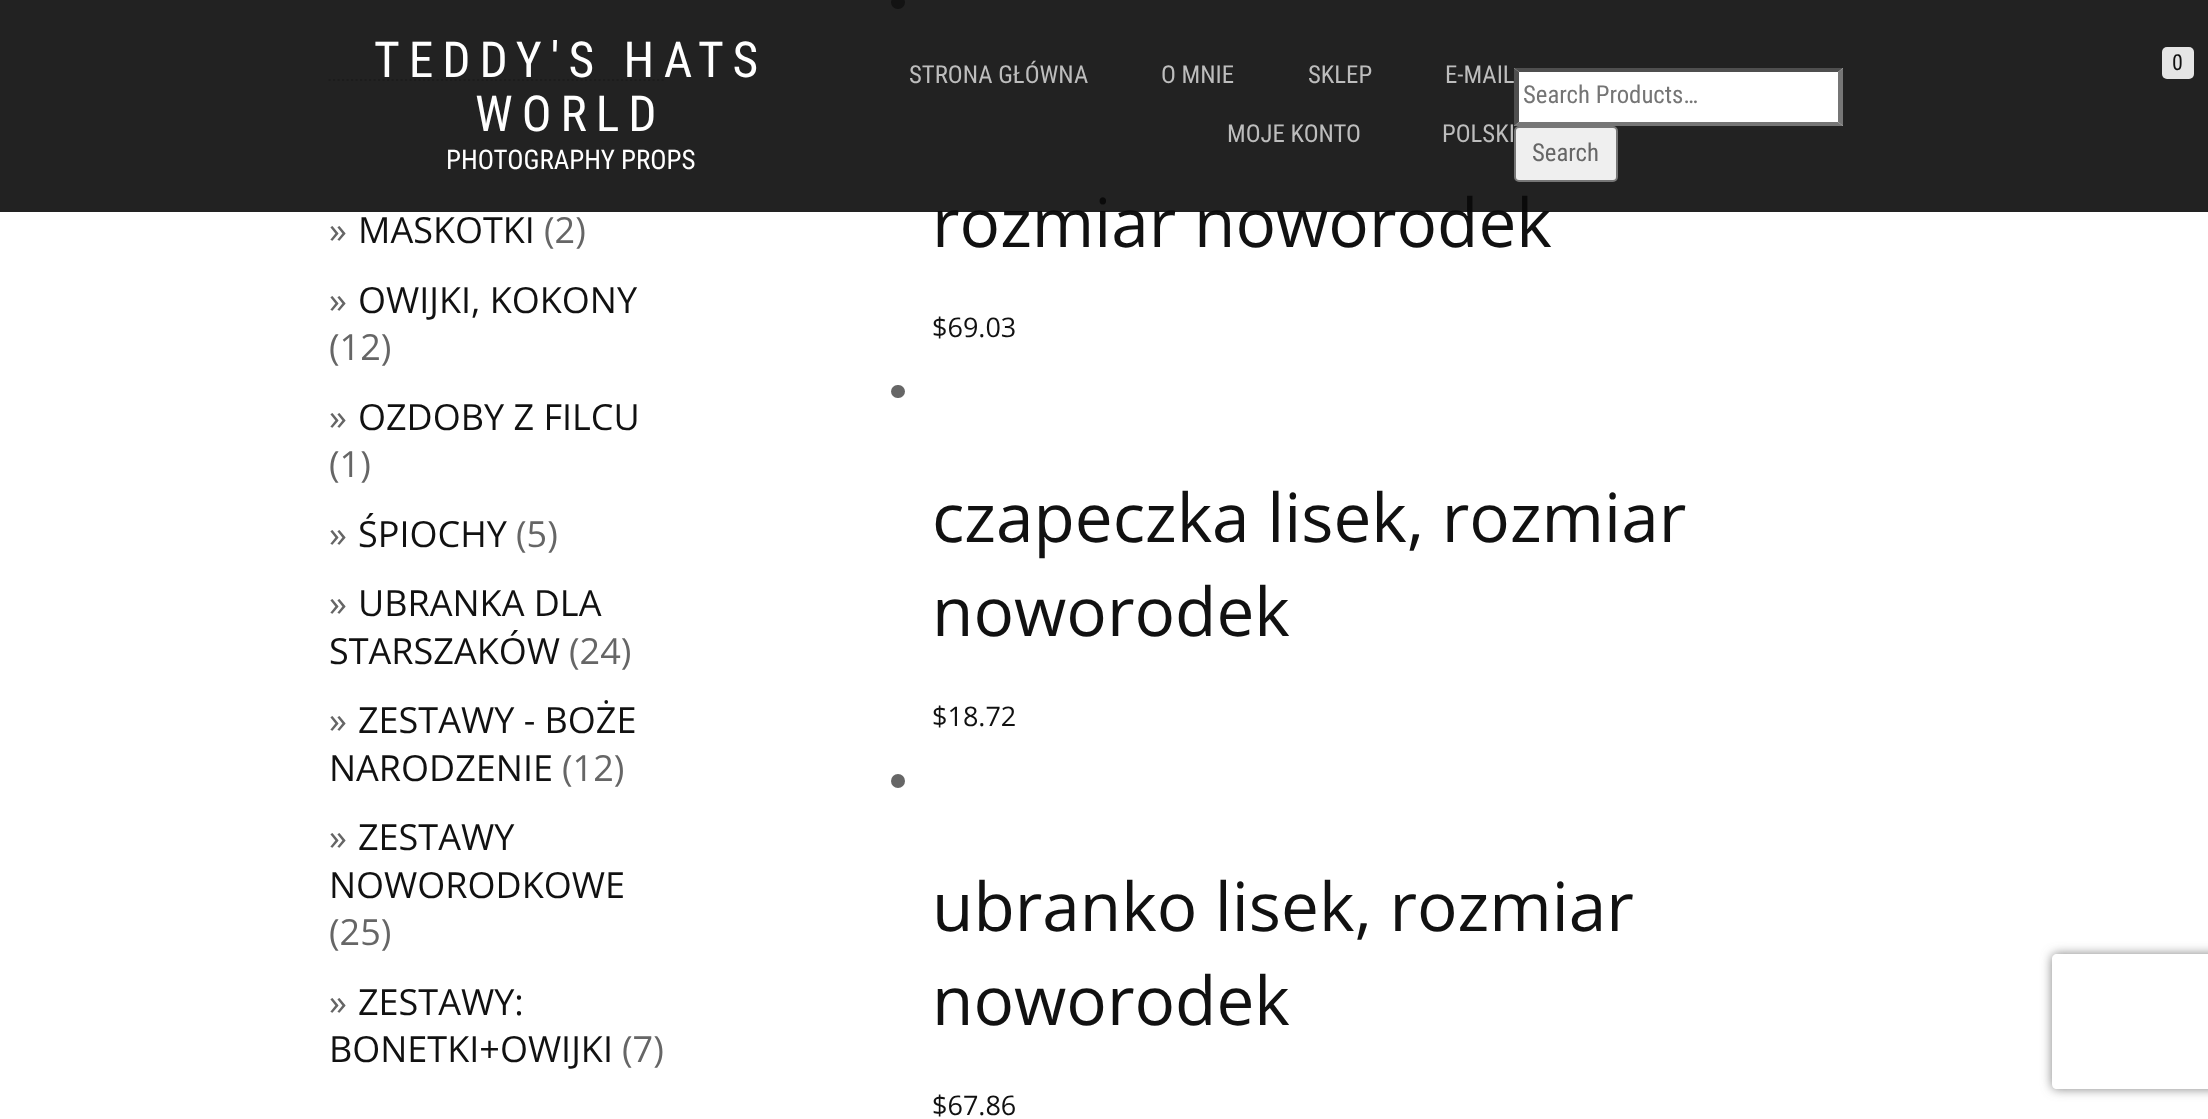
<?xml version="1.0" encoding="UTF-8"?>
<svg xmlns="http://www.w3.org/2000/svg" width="2208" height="1119">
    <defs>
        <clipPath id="clip1"><path d="M 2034 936 H 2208 V 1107 H 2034 Z M 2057 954 H 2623 C 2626 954 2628 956 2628 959 V 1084 C 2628 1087 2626 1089 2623 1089 H 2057 C 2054 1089 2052 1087 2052 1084 V 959 C 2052 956 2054 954 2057 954 Z" clip-rule="evenodd"/></clipPath>
        <filter id="blur1" x="-50%" y="-200%" width="200%" height="500%"><feGaussianBlur stdDeviation="5.5"/></filter>
    </defs>
    <rect width="100%" height="100%" fill="#FFFFFF"/>
    <path d="M 328.5 80 H 666" fill="none" stroke="#C2C2C2" stroke-width="2.2" stroke-dasharray="2.25 2.25"/>
    <rect x="891" y="-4" width="14" height="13" rx="6.5" fill="#666666"/>
    <text x="932" y="247" font-family="Open Sans" font-size="67.5" fill="#111111">rozmiar noworodek</text>
    <rect x="0" y="0" width="2208" height="212" fill="#0A0A0A" fill-opacity="0.9"/>
    <text x="374" y="77" font-family="Roboto Condensed" font-size="49.5" letter-spacing="9" fill="#FFFFFF">TEDDY'S HATS</text>
    <text x="475" y="131" font-family="Roboto Condensed" font-size="49.5" letter-spacing="9" fill="#FFFFFF">WORLD</text>
    <text x="446" y="169" font-family="Roboto Condensed" font-size="27" fill="#FFFFFF">PHOTOGRAPHY PROPS</text>
    <text x="909" y="83" font-family="Roboto Condensed" font-size="24.75" fill="#BDBDBD">STRONA GŁÓWNA</text>
    <text x="1161" y="83" font-family="Roboto Condensed" font-size="24.75" fill="#BDBDBD">O MNIE</text>
    <text x="1308" y="83" font-family="Roboto Condensed" font-size="24.75" fill="#BDBDBD">SKLEP</text>
    <text x="1445" y="83" font-family="Roboto Condensed" font-size="24.75" fill="#BDBDBD">E-MAIL</text>
    <text x="1227" y="142" font-family="Roboto Condensed" font-size="24.75" fill="#BDBDBD">MOJE KONTO</text>
    <text x="1442" y="142" font-family="Roboto Condensed" font-size="24.75" fill="#BDBDBD">POLSKI</text>
    <rect x="2162" y="47" width="32" height="32" rx="5" fill="#E5E5E5"/>
    <text x="2172" y="70" font-family="Roboto Condensed" font-size="22" fill="#111111">0</text>
    <rect x="1514" y="68" width="329" height="58" fill="#FFFFFF"/>
    <path d="M 1514 68 H 1843 L 1838 72 H 1519 Z" fill="#4F4F4F"/>
    <path d="M 1843 68 V 126 L 1838 122 V 72 Z" fill="#767676"/>
    <path d="M 1843 126 H 1514 L 1519 122 H 1838 Z" fill="#767676"/>
    <path d="M 1514 126 V 68 L 1519 72 V 122 Z" fill="#4F4F4F"/>
    <text x="1523" y="103" font-family="Roboto Condensed" font-size="24.75" fill="#757575">Search Products…</text>
    <rect x="1515" y="127" width="102" height="54" rx="4" fill="#EFEFEF" stroke="#767676" stroke-width="2"/>
    <text x="1532" y="161" font-family="Roboto Condensed" font-size="24.75" fill="#666666">Search</text>
    <text x="329" y="243" font-family="Open Sans" font-size="36" fill="#666666">»</text>
    <text x="358" y="243" font-family="Open Sans" font-size="36" fill="#111111">MASKOTKI</text>
    <text x="544" y="243" font-family="Open Sans" font-size="36" fill="#666666">(2)</text>
    <text x="329" y="313" font-family="Open Sans" font-size="36" fill="#666666">»</text>
    <text x="358" y="313" font-family="Open Sans" font-size="36" fill="#111111">OWIJKI, KOKONY</text>
    <text font-family="Open Sans" font-size="36" fill="#666666">
        <tspan x="329" y="360">(12)</tspan>
        <tspan x="329" y="430">»</tspan>
    </text>
    <text x="358" y="430" font-family="Open Sans" font-size="36" fill="#111111">OZDOBY Z FILCU</text>
    <text font-family="Open Sans" font-size="36" fill="#666666">
        <tspan x="329" y="477">(1)</tspan>
        <tspan x="329" y="547">»</tspan>
    </text>
    <text x="358" y="547" font-family="Open Sans" font-size="36" fill="#111111">ŚPIOCHY</text>
    <text x="516" y="547" font-family="Open Sans" font-size="36" fill="#666666">(5)</text>
    <text x="329" y="616" font-family="Open Sans" font-size="36" fill="#666666">»</text>
    <text x="358" y="616" font-family="Open Sans" font-size="36" fill="#111111">UBRANKA DLA</text>
    <text x="329" y="664" font-family="Open Sans" font-size="36" fill="#111111">STARSZAKÓW</text>
    <text x="569" y="664" font-family="Open Sans" font-size="36" fill="#666666">(24)</text>
    <text x="329" y="733" font-family="Open Sans" font-size="36" fill="#666666">»</text>
    <text x="358" y="733" font-family="Open Sans" font-size="36" fill="#111111">ZESTAWY - BOŻE</text>
    <text x="329" y="781" font-family="Open Sans" font-size="36" fill="#111111">NARODZENIE</text>
    <text x="562" y="781" font-family="Open Sans" font-size="36" fill="#666666">(12)</text>
    <text x="329" y="850" font-family="Open Sans" font-size="36" fill="#666666">»</text>
    <text x="358" y="850" font-family="Open Sans" font-size="36" fill="#111111">ZESTAWY</text>
    <text x="329" y="898" font-family="Open Sans" font-size="36" fill="#111111">NOWORODKOWE</text>
    <text font-family="Open Sans" font-size="36" fill="#666666">
        <tspan x="329" y="945">(25)</tspan>
        <tspan x="329" y="1015">»</tspan>
    </text>
    <text x="358" y="1015" font-family="Open Sans" font-size="36" fill="#111111">ZESTAWY:</text>
    <text x="329" y="1062" font-family="Open Sans" font-size="36" fill="#111111">BONETKI+OWIJKI</text>
    <text x="622" y="1062" font-family="Open Sans" font-size="36" fill="#666666">(7)</text>
    <text x="932" y="337" font-family="Open Sans" font-size="27" fill="#111111">$69.03</text>
    <rect x="891" y="385" width="14" height="13" rx="6.5" fill="#666666"/>
    <text font-family="Open Sans" font-size="67.5" fill="#111111">
        <tspan x="932" y="542">czapeczka lisek, rozmiar</tspan>
        <tspan x="932" y="636">noworodek</tspan>
    </text>
    <text x="932" y="726" font-family="Open Sans" font-size="27" fill="#111111">$18.72</text>
    <circle cx="898" cy="781" r="7" fill="#666666"/>
    <text font-family="Open Sans" font-size="67.5" fill="#111111">
        <tspan x="932" y="931">ubranko lisek, rozmiar</tspan>
        <tspan x="932" y="1025">noworodek</tspan>
    </text>
    <text x="932" y="1115" font-family="Open Sans" font-size="27" fill="#111111">$67.86</text>
    <g clip-path="url(#clip1)">
        <rect x="2052" y="954" width="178" height="135" rx="5" fill="#808080" filter="url(#blur1)"/>
    </g>
</svg>
